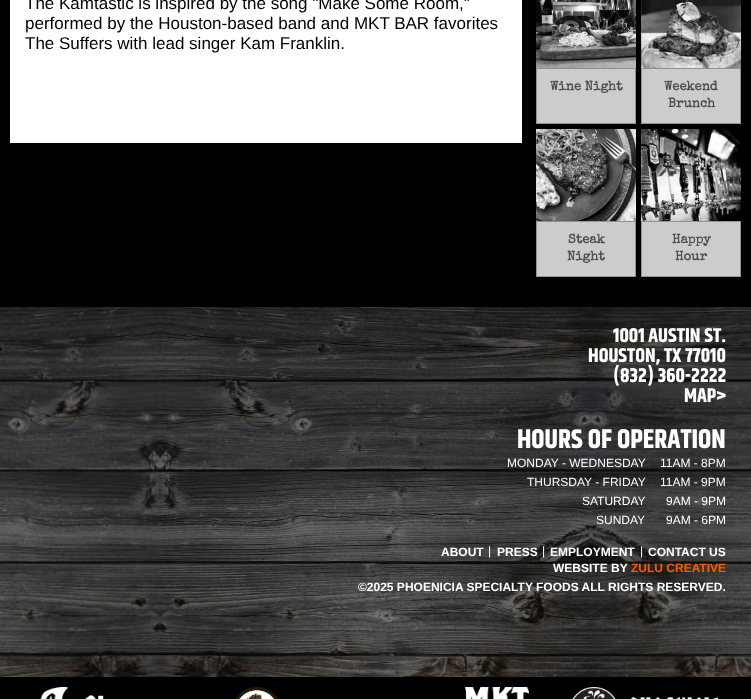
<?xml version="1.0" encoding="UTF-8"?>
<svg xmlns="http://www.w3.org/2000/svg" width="751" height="699">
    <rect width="100%" height="100%" fill="#000000"/>
    <rect x="10" y="0" width="512" height="143" fill="#FFFFFF"/>
    <text font-family="Liberation Sans" font-size="17" fill="#010101">
        <tspan x="25" y="9">The Kamtastic is inspired by the song "Make Some Room,"</tspan>
        <tspan x="25" y="29">performed by the Houston-based band and MKT BAR favorites</tspan>
        <tspan x="25" y="49">The Suffers with lead singer Kam Franklin.</tspan>
    </text>
    <image x="536" y="0" width="100" height="68" href="img_01.png"/>
    <rect x="536.5" y="68.5" width="99" height="55" fill="#CDCCCB" stroke="#959191"/>
    <text x="550" y="90" font-family="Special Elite" font-size="13" font-weight="700" fill="#4E4E4E">Wine Night</text>
    <image x="641" y="0" width="100" height="68" href="img_02.png"/>
    <rect x="641.5" y="68.5" width="99" height="55" fill="#CDCCCB" stroke="#959191"/>
    <text x="664" y="90" font-family="Special Elite" font-size="13" font-weight="700" fill="#4E4E4E">Weekend</text>
    <text x="668" y="107" font-family="Special Elite" font-size="13" font-weight="700" fill="#4E4E4E">Brunch</text>
    <image x="536" y="129" width="100" height="92" href="img_03.png"/>
    <rect x="536.5" y="221.5" width="99" height="55" fill="#CDCCCB" stroke="#959191"/>
    <text x="568" y="243" font-family="Special Elite" font-size="13" font-weight="700" fill="#4E4E4E">Steak</text>
    <text x="567" y="260" font-family="Special Elite" font-size="13" font-weight="700" fill="#4E4E4E">Night</text>
    <image x="641" y="129" width="100" height="92" href="img_04.png"/>
    <rect x="641.5" y="221.5" width="99" height="55" fill="#CDCCCB" stroke="#959191"/>
    <text x="672" y="243" font-family="Special Elite" font-size="13" font-weight="700" fill="#4E4E4E">Happy</text>
    <text x="675" y="260" font-family="Special Elite" font-size="13" font-weight="700" fill="#4E4E4E">Hour</text>
    <image x="0" y="307" width="751" height="370" href="img_05.png"/>
    <text x="613" y="342" font-family="Khand" font-size="20" font-weight="700" fill="#FFFFFF">1001 AUSTIN ST.</text>
    <text x="588" y="362" font-family="Khand" font-size="20" font-weight="700" fill="#FFFFFF">HOUSTON, TX 77010</text>
    <text x="613" y="382" font-family="Khand" font-size="20" font-weight="700" fill="#FFFFFF">(832) 360-2222</text>
    <text x="684" y="402" font-family="Khand" font-size="20" font-weight="700" fill="#FFFFFF">MAP&gt;</text>
    <text x="517" y="448" font-family="Khand" font-size="27" font-weight="700" fill="#FFFFFF">HOURS OF OPERATION</text>
    <text x="507" y="467" font-family="Liberation Sans" font-size="12" fill="#FFFFFF">MONDAY - WEDNESDAY</text>
    <text x="660" y="467" font-family="Liberation Sans" font-size="12" fill="#FFFFFF">11AM - 8PM</text>
    <text x="527" y="486" font-family="Liberation Sans" font-size="12" fill="#FFFFFF">THURSDAY - FRIDAY</text>
    <text x="660" y="486" font-family="Liberation Sans" font-size="12" fill="#FFFFFF">11AM - 9PM</text>
    <text x="582" y="505" font-family="Liberation Sans" font-size="12" fill="#FFFFFF">SATURDAY</text>
    <text x="666" y="505" font-family="Liberation Sans" font-size="12" fill="#FFFFFF">9AM - 9PM</text>
    <text x="596" y="524" font-family="Liberation Sans" font-size="12" fill="#FFFFFF">SUNDAY</text>
    <text x="666" y="524" font-family="Liberation Sans" font-size="12" fill="#FFFFFF">9AM - 6PM</text>
    <text x="441" y="556" font-family="Liberation Sans" font-size="12" font-weight="700" fill="#FFFFFF">ABOUT</text>
    <text x="488" y="555" font-family="Liberation Sans" font-size="12" fill="#FFFFFF">|</text>
    <text x="497" y="556" font-family="Liberation Sans" font-size="12" font-weight="700" fill="#FFFFFF">PRESS</text>
    <text x="542" y="555" font-family="Liberation Sans" font-size="12" fill="#FFFFFF">|</text>
    <text x="550" y="556" font-family="Liberation Sans" font-size="12" font-weight="700" fill="#FFFFFF">EMPLOYMENT</text>
    <text x="640" y="555" font-family="Liberation Sans" font-size="12" fill="#FFFFFF">|</text>
    <text x="648" y="556" font-family="Liberation Sans" font-size="12" font-weight="700" fill="#FFFFFF">CONTACT US</text>
    <text x="553" y="572" font-family="Liberation Sans" font-size="12" font-weight="700" fill="#FFFFFF">WEBSITE BY</text>
    <text x="631" y="572" font-family="Liberation Sans" font-size="12" font-weight="700" fill="#FF5A00">ZULU CREATIVE</text>
    <text x="358" y="591" font-family="Liberation Sans" font-size="12" font-weight="700" fill="#FFFFFF">©2025 PHOENICIA SPECIALTY FOODS ALL RIGHTS RESERVED.</text>
    <image x="40" y="687" width="64" height="12" href="img_06.png"/>
    <image x="236" y="687" width="42" height="12" href="img_07.png"/>
    <image x="465" y="687" width="64" height="12" href="img_08.png"/>
    <image x="572" y="687" width="146" height="12" href="img_09.png"/>
</svg>
